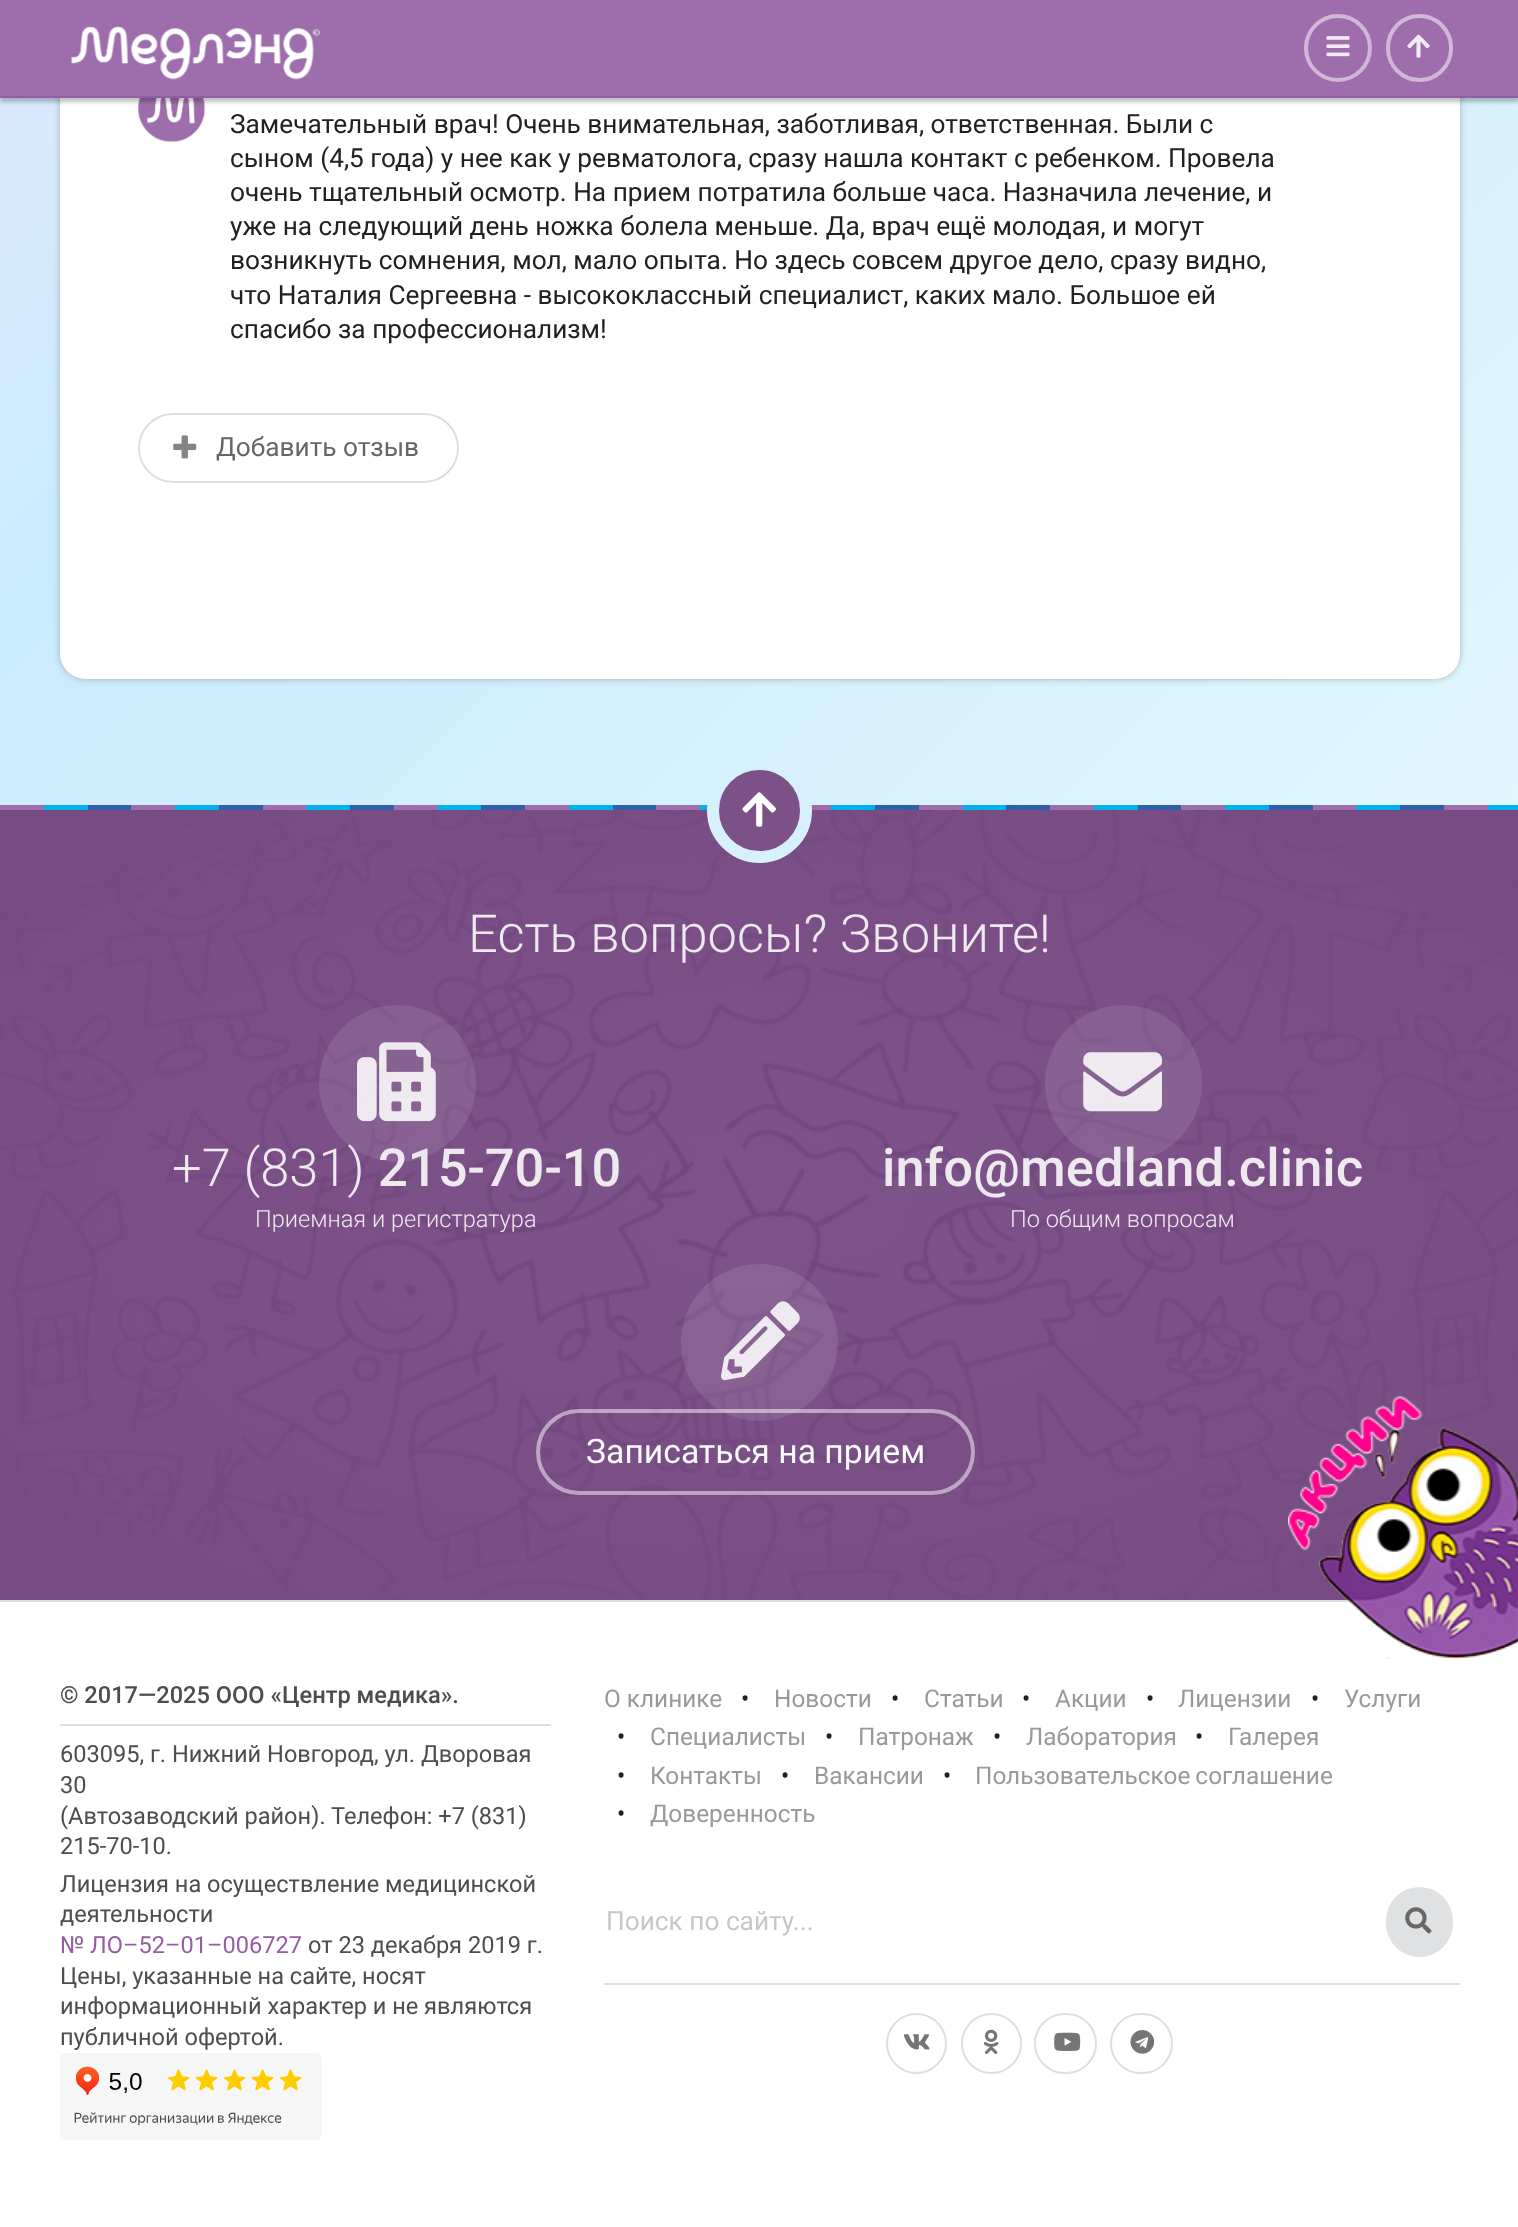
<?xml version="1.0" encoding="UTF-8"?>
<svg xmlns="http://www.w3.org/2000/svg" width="1518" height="2227">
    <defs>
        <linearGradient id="g1" gradientUnits="userSpaceOnUse" x1="-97" y1="-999" x2="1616" y2="714"><stop offset="0" stop-color="#FCE8FF"/><stop offset="0.5" stop-color="#CBEBFF"/><stop offset="1" stop-color="#E0F7FC"/></linearGradient>
        <filter id="blur1" x="-50%" y="-200%" width="200%" height="500%"><feGaussianBlur stdDeviation="3.5"/></filter>
        <filter id="blur2" x="-50%" y="-200%" width="200%" height="500%"><feGaussianBlur stdDeviation="2"/></filter>
        <radialGradient id="g2" gradientUnits="userSpaceOnUse" cx="0" cy="0" r="1" gradientTransform="matrix(1074 0 0 558 760 1205)"><stop offset="0" stop-color="#764B83" stop-opacity="0.95"/><stop offset="1" stop-color="#764B83"/></radialGradient>
    </defs>
    <rect width="100%" height="100%" fill="#FFFFFF"/>
    <rect x="0" y="98" width="1518" height="707" fill="url(#g1)"/>
    <rect x="60" y="-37" width="1400" height="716" rx="26" fill="#000000" fill-opacity="0.25" filter="url(#blur1)"/>
    <path d="M 60 -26 H 1460 V 653 C 1460 667.5 1448.5 679 1434 679 H 86 C 71.5 679 60 667.5 60 653 Z" fill="#FFFFFF"/>
    <image x="138" y="98" width="68" height="45" href="img_04.png"/>
    <rect x="0" y="4" width="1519" height="98" fill="#000000" fill-opacity="0.25" filter="url(#blur2)"/>
    <rect x="0" y="0" width="1518" height="96" fill="#9E6EAC"/>
    <rect x="0" y="96" width="1518" height="2" fill="#935EA3"/>
    <image x="71" y="26" width="249" height="54" href="img_01.png"/>
    <circle cx="1338" cy="48" r="32" fill="none" stroke="#CFB7D6" stroke-width="4"/>
    <image x="1326" y="36" width="24" height="21" href="img_02.png"/>
    <rect x="1388" y="16" width="63" height="64" rx="31.5" fill="none" stroke="#CFB7D6" stroke-width="4"/>
    <image x="1407" y="34" width="23" height="24" href="img_03.png"/>
    <text font-family="Roboto" font-size="26.25" fill="#212121">
        <tspan x="230" y="133">Замечательный врач! Очень внимательная, заботливая, ответственная. Были с</tspan>
        <tspan x="230" y="167">сыном (4,5 года) у нее как у ревматолога, сразу нашла контакт с ребенком. Провела</tspan>
        <tspan x="230" y="201">очень тщательный осмотр. На прием потратила больше часа. Назначила лечение, и</tspan>
        <tspan x="230" y="235">уже на следующий день ножка болела меньше. Да, врач ещё молодая, и могут</tspan>
        <tspan x="230" y="269">возникнуть сомнения, мол, мало опыта. Но здесь совсем другое дело, сразу видно,</tspan>
        <tspan x="230" y="304">что Наталия Сергеевна - высококлассный специалист, каких мало. Большое ей</tspan>
        <tspan x="230" y="338">спасибо за профессионализм!</tspan>
    </text>
    <rect x="139" y="414" width="319" height="68" rx="34" fill="none" stroke="#DEDEDE" stroke-width="2"/>
    <image x="173" y="435" width="24" height="24" href="img_05.png"/>
    <text x="216" y="456" font-family="Roboto" font-size="26.25" fill="#666666">Добавить отзыв</text>
    <image x="0" y="810" width="1518" height="790" href="img_06.png"/>
    <image x="0" y="805" width="1518" height="5" href="img_08.png"/>
    <rect x="0" y="810" width="1518" height="790" fill="url(#g2)"/>
    <circle cx="759.5" cy="810.5" r="46.5" fill="#7B5187" stroke="#D6F1FD" stroke-width="12"/>
    <image x="742" y="792" width="34" height="35" href="img_07.png"/>
    <text x="468" y="952" font-family="Roboto" font-size="52.5" font-weight="300" fill="#EEE8EF">Есть вопросы? Звоните!</text>
    <image x="357" y="1042" width="79" height="80" href="img_09.png"/>
    <circle cx="397.5" cy="1083.5" r="78.5" fill="#FFFFFF" fill-opacity="0.1"/>
    <text x="172" y="1186" font-family="Roboto" font-size="52.5" font-weight="300" fill="#EEE8EF">+7 (831)</text>
    <text x="378" y="1186" font-family="Roboto" font-size="52.5" font-weight="500" fill="#EEE8EF">215-70-10</text>
    <text x="255" y="1227" font-family="Roboto" font-size="23.6" font-weight="300" fill="#EEE8EF">Приемная и регистратура</text>
    <image x="1083" y="1052" width="79" height="60" href="img_10.png"/>
    <circle cx="1123.5" cy="1083.5" r="78.5" fill="#FFFFFF" fill-opacity="0.1"/>
    <text x="882" y="1186" font-family="Roboto" font-size="52.5" font-weight="500" fill="#EEE8EF">info@medland.clinic</text>
    <text x="1010" y="1227" font-family="Roboto" font-size="23.6" font-weight="300" fill="#EEE8EF">По общим вопросам</text>
    <image x="720" y="1301" width="80" height="80" href="img_11.png"/>
    <rect x="538" y="1411" width="435" height="82" rx="41" fill="none" stroke="#FFFFFF" stroke-opacity="0.5" stroke-width="4"/>
    <circle cx="759.5" cy="1342.5" r="78.5" fill="#FFFFFF" fill-opacity="0.1"/>
    <text x="586" y="1463" font-family="Roboto" font-size="33.75" fill="#F9FAFB">Записаться на прием</text>
    <rect x="0" y="1600" width="1518" height="2" fill="#DEDEDE"/>
    <rect x="60" y="1724" width="491" height="2" fill="#DEDEDE"/>
    <text x="60" y="1703" font-family="Roboto" font-size="23.6" font-weight="500" fill="#4D4D4D">© 2017—2025 ООО «Центр медика».</text>
    <text font-family="Roboto" font-size="23.6" fill="#4D4D4D">
        <tspan x="60" y="1762">603095, г. Нижний Новгород, ул. Дворовая</tspan>
        <tspan x="60" y="1793">30</tspan>
        <tspan x="60" y="1824">(Автозаводский район). Телефон: +7 (831)</tspan>
        <tspan x="60" y="1854">215-70-10.</tspan>
        <tspan x="60" y="1892">Лицензия на осуществление медицинской</tspan>
        <tspan x="60" y="1922">деятельности</tspan>
    </text>
    <text x="60" y="1953" font-family="Roboto" font-size="23.6" fill="#935EA3">№ ЛО–52–01–006727</text>
    <text x="308" y="1953" font-family="Roboto" font-size="23.6" fill="#4D4D4D">от 23 декабря 2019 г.</text>
    <text font-family="Roboto" font-size="23.6" fill="#4D4D4D">
        <tspan x="60" y="1984">Цены, указанные на сайте, носят</tspan>
        <tspan x="60" y="2014">информационный характер и не являются</tspan>
        <tspan x="60" y="2045">публичной офертой.</tspan>
    </text>
    <image x="60" y="2053" width="262" height="87" href="img_12.png"/>
    <text x="604" y="1707" font-family="Roboto" font-size="24.4" fill="#999999">О клинике</text>
    <text x="741" y="1707" font-family="Roboto" font-size="24.4" fill="#212121">•</text>
    <text x="774" y="1707" font-family="Roboto" font-size="24.4" fill="#999999">Новости</text>
    <text x="891" y="1707" font-family="Roboto" font-size="24.4" fill="#212121">•</text>
    <text x="924" y="1707" font-family="Roboto" font-size="24.4" fill="#999999">Статьи</text>
    <text x="1022" y="1707" font-family="Roboto" font-size="24.4" fill="#212121">•</text>
    <text x="1055" y="1707" font-family="Roboto" font-size="24.4" fill="#999999">Акции</text>
    <text x="1146" y="1707" font-family="Roboto" font-size="24.4" fill="#212121">•</text>
    <text x="1178" y="1707" font-family="Roboto" font-size="24.4" fill="#999999">Лицензии</text>
    <text x="1311" y="1707" font-family="Roboto" font-size="24.4" fill="#212121">•</text>
    <text x="1344" y="1707" font-family="Roboto" font-size="24.4" fill="#999999">Услуги</text>
    <text x="617" y="1745" font-family="Roboto" font-size="24.4" fill="#212121">•</text>
    <text x="650" y="1745" font-family="Roboto" font-size="24.4" fill="#999999">Специалисты</text>
    <text x="825" y="1745" font-family="Roboto" font-size="24.4" fill="#212121">•</text>
    <text x="858" y="1745" font-family="Roboto" font-size="24.4" fill="#999999">Патронаж</text>
    <text x="993" y="1745" font-family="Roboto" font-size="24.4" fill="#212121">•</text>
    <text x="1026" y="1745" font-family="Roboto" font-size="24.4" fill="#999999">Лаборатория</text>
    <text x="1195" y="1745" font-family="Roboto" font-size="24.4" fill="#212121">•</text>
    <text x="1228" y="1745" font-family="Roboto" font-size="24.4" fill="#999999">Галерея</text>
    <text x="617" y="1784" font-family="Roboto" font-size="24.4" fill="#212121">•</text>
    <text x="650" y="1784" font-family="Roboto" font-size="24.4" fill="#999999">Контакты</text>
    <text x="781" y="1784" font-family="Roboto" font-size="24.4" fill="#212121">•</text>
    <text x="814" y="1784" font-family="Roboto" font-size="24.4" fill="#999999">Вакансии</text>
    <text x="943" y="1784" font-family="Roboto" font-size="24.4" fill="#212121">•</text>
    <text x="975" y="1784" word-spacing="-1" font-family="Roboto" font-size="24.4" fill="#999999">Пользовательское соглашение</text>
    <text x="617" y="1822" font-family="Roboto" font-size="24.4" fill="#212121">•</text>
    <text x="650" y="1822" font-family="Roboto" font-size="24.4" fill="#999999">Доверенность</text>
    <text x="606" y="1930" font-family="Roboto" font-size="26.25" fill="#C7C7C7">Поиск по сайту...</text>
    <rect x="1386" y="1887" width="67" height="70" rx="33.5" fill="#E0E1E2"/>
    <image x="1405" y="1907" width="27" height="27" href="img_13.png"/>
    <rect x="604" y="1983" width="856" height="2" fill="#DEDEDE"/>
    <circle cx="916.5" cy="2043.5" r="29.5" fill="none" stroke="#DEDEDE" stroke-width="2"/>
    <image x="904" y="2034" width="26" height="16" href="img_14.png"/>
    <circle cx="991.5" cy="2043.5" r="29.5" fill="none" stroke="#DEDEDE" stroke-width="2"/>
    <image x="983" y="2029" width="16" height="25" href="img_15.png"/>
    <rect x="1035" y="2014" width="61" height="59" rx="29.5" fill="none" stroke="#DEDEDE" stroke-width="2"/>
    <image x="1054" y="2032" width="27" height="19" href="img_16.png"/>
    <rect x="1111" y="2014" width="61" height="59" rx="29.5" fill="none" stroke="#DEDEDE" stroke-width="2"/>
    <image x="1130" y="2030" width="25" height="24" href="img_17.png"/>
    <image x="1288" y="1396" width="230" height="263" href="img_18.png"/>
</svg>
